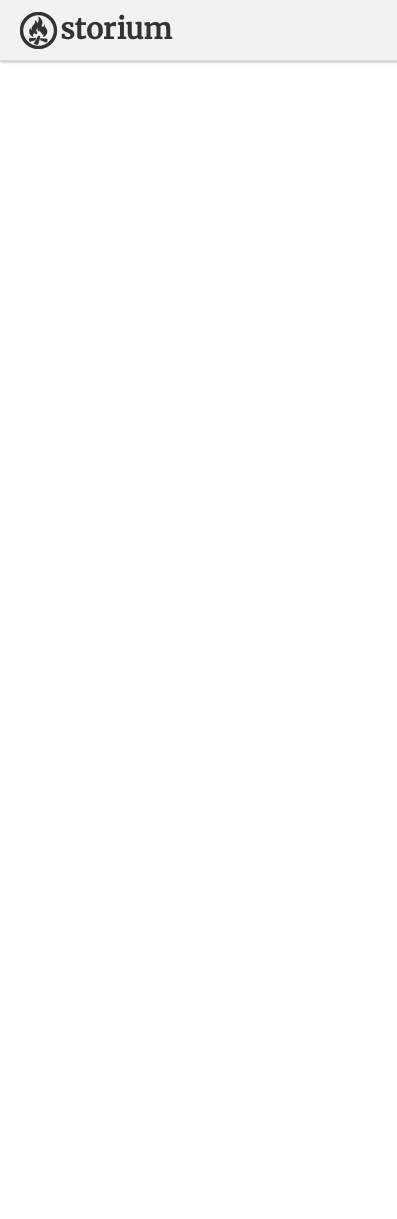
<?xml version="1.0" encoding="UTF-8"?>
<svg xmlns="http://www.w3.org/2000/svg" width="397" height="1219">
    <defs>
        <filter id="blur1" x="-50%" y="-200%" width="200%" height="500%"><feGaussianBlur stdDeviation="1.5"/></filter>
    </defs>
    <rect width="100%" height="100%" fill="#FFFFFF"/>
    <rect x="0" y="1" width="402" height="61" fill="#000000" fill-opacity="0.3" filter="url(#blur1)"/>
    <rect x="0" y="0" width="397" height="60" fill="#F2F2F2"/>
    <rect x="0" y="60" width="397" height="1" fill="#E0E0E0"/>
    <image x="20" y="12" width="153" height="37" href="img_01.png"/>
</svg>
